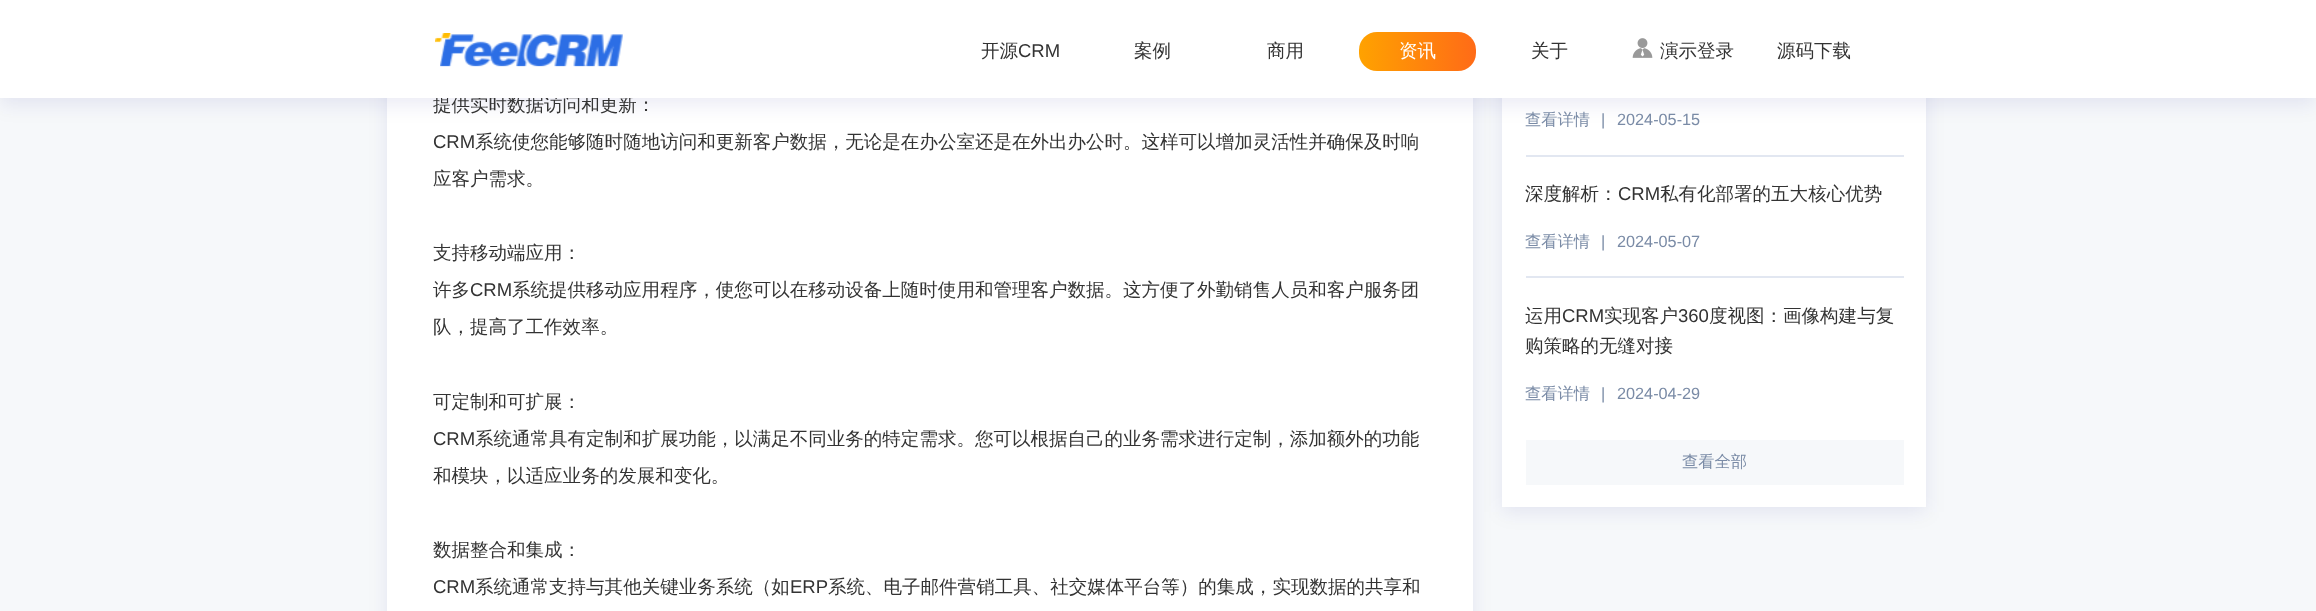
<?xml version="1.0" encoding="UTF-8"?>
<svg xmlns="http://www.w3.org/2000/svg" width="2316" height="611">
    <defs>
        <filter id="blur1" x="-50%" y="-200%" width="200%" height="500%"><feGaussianBlur stdDeviation="9.5"/></filter>
        <linearGradient id="g1" gradientUnits="userSpaceOnUse" x1="1359" y1="51" x2="1476" y2="51"><stop offset="0" stop-color="#FFA200"/><stop offset="1" stop-color="#FF6B17"/></linearGradient>
    </defs>
    <rect width="100%" height="100%" fill="#F6F8FA"/>
    <rect x="387" y="-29" width="1086" height="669" fill="#00167D" fill-opacity="0.08" filter="url(#blur1)"/>
    <rect x="387" y="98" width="1086" height="513" fill="#FFFFFF"/>
    <rect x="1502" y="-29" width="424" height="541" fill="#00167D" fill-opacity="0.08" filter="url(#blur1)"/>
    <rect x="1502" y="98" width="424" height="409" fill="#FFFFFF"/>
    <rect x="0" y="8" width="2316" height="97" fill="#00167D" fill-opacity="0.08" filter="url(#blur1)"/>
    <text x="433" y="111" font-family="WenQuanYi Zen Hei" font-size="18.53" font-weight="500" fill="#333333">提供实时数据访问和更新：</text>
    <rect x="0" y="0" width="2316" height="98" fill="#FFFFFF"/>
    <image x="435" y="33" width="188" height="34" href="img_01.png"/>
    <text x="981" y="57" font-family="WenQuanYi Zen Hei" font-size="18.53" font-weight="500" fill="#333333">开源</text>
    <text x="1018" y="57" font-family="Liberation Sans" font-size="18.53" fill="#333333">CRM</text>
    <text x="1134" y="57" font-family="WenQuanYi Zen Hei" font-size="18.53" font-weight="500" fill="#333333">案例</text>
    <text x="1267" y="57" font-family="WenQuanYi Zen Hei" font-size="18.53" font-weight="500" fill="#333333">商用</text>
    <rect x="1359" y="32" width="117" height="39" rx="18" fill="url(#g1)"/>
    <text x="1399" y="57" font-family="WenQuanYi Zen Hei" font-size="18.53" font-weight="500" fill="#FFFFFF">资讯</text>
    <text x="1531" y="57" font-family="WenQuanYi Zen Hei" font-size="18.53" font-weight="500" fill="#333333">关于</text>
    <image x="1632" y="38" width="21" height="20" href="img_02.png"/>
    <text x="1660" y="57" font-family="WenQuanYi Zen Hei" font-size="18.53" font-weight="500" fill="#333333">演示登录</text>
    <text x="1777" y="57" font-family="WenQuanYi Zen Hei" font-size="18.53" font-weight="500" fill="#333333">源码下载</text>
    <text x="433" y="148" font-family="Liberation Sans" font-size="18.53" fill="#333333">CRM</text>
    <text x="475" y="148" font-family="WenQuanYi Zen Hei" font-size="18.53" font-weight="500" fill="#333333">系统使您能够随时随地访问和更新客户数据，无论是在办公室还是在外出办公时。这样可以增加灵活性并确保及时响</text>
    <text x="433" y="185" font-family="WenQuanYi Zen Hei" font-size="18.53" font-weight="500" fill="#333333">应客户需求。</text>
    <text font-family="WenQuanYi Zen Hei" font-size="18.53" font-weight="500" fill="#333333">
        <tspan x="433" y="259">支持移动端应用：</tspan>
        <tspan x="433" y="296">许多</tspan>
    </text>
    <text x="470" y="296" font-family="Liberation Sans" font-size="18.53" fill="#333333">CRM</text>
    <text x="512" y="296" font-family="WenQuanYi Zen Hei" font-size="18.53" font-weight="500" fill="#333333">系统提供移动应用程序，使您可以在移动设备上随时使用和管理客户数据。这方便了外勤销售人员和客户服务团</text>
    <text x="433" y="333" font-family="WenQuanYi Zen Hei" font-size="18.53" font-weight="500" fill="#333333">队，提高了工作效率。</text>
    <text x="433" y="408" font-family="WenQuanYi Zen Hei" font-size="18.53" font-weight="500" fill="#333333">可定制和可扩展：</text>
    <text x="433" y="445" font-family="Liberation Sans" font-size="18.53" fill="#333333">CRM</text>
    <text x="475" y="445" font-family="WenQuanYi Zen Hei" font-size="18.53" font-weight="500" fill="#333333">系统通常具有定制和扩展功能，以满足不同业务的特定需求。您可以根据自己的业务需求进行定制，添加额外的功能</text>
    <text x="433" y="482" font-family="WenQuanYi Zen Hei" font-size="18.53" font-weight="500" fill="#333333">和模块，以适应业务的发展和变化。</text>
    <text x="433" y="556" font-family="WenQuanYi Zen Hei" font-size="18.53" font-weight="500" fill="#333333">数据整合和集成：</text>
    <text x="433" y="593" font-family="Liberation Sans" font-size="18.53" fill="#333333">CRM</text>
    <text x="475" y="593" font-family="WenQuanYi Zen Hei" font-size="18.53" font-weight="500" fill="#333333">系统通常支持与其他关键业务系统（如</text>
    <text x="790" y="593" font-family="Liberation Sans" font-size="18.53" fill="#333333">ERP</text>
    <text x="828" y="593" font-family="WenQuanYi Zen Hei" font-size="18.53" font-weight="500" fill="#333333">系统、电子邮件营销工具、社交媒体平台等）的集成，实现数据的共享和</text>
    <text x="1525" y="125" font-family="WenQuanYi Zen Hei" font-size="16.25" font-weight="500" fill="#7A8BA6">查看详情</text>
    <text x="1601" y="125" font-family="Liberation Sans" font-size="16.25" fill="#7A8BA6">|</text>
    <text x="1617" y="125" font-family="Liberation Sans" font-size="16.25" fill="#7A8BA6">2024-05-15</text>
    <rect x="1526" y="155" width="378" height="2" fill="#E2E7F1"/>
    <text x="1525" y="200" font-family="WenQuanYi Zen Hei" font-size="18.53" font-weight="500" fill="#333333">深度解析：</text>
    <text x="1618" y="200" font-family="Liberation Sans" font-size="18.53" fill="#333333">CRM</text>
    <text x="1660" y="200" font-family="WenQuanYi Zen Hei" font-size="18.53" font-weight="500" fill="#333333">私有化部署的五大核心优势</text>
    <text x="1525" y="247" font-family="WenQuanYi Zen Hei" font-size="16.25" font-weight="500" fill="#7A8BA6">查看详情</text>
    <text x="1601" y="247" font-family="Liberation Sans" font-size="16.25" fill="#7A8BA6">|</text>
    <text x="1617" y="247" font-family="Liberation Sans" font-size="16.25" fill="#7A8BA6">2024-05-07</text>
    <rect x="1526" y="276" width="378" height="2" fill="#E2E7F1"/>
    <text x="1525" y="322" font-family="WenQuanYi Zen Hei" font-size="18.53" font-weight="500" fill="#333333">运用</text>
    <text x="1562" y="322" font-family="Liberation Sans" font-size="18.53" fill="#333333">CRM</text>
    <text x="1604" y="322" font-family="WenQuanYi Zen Hei" font-size="18.53" font-weight="500" fill="#333333">实现客户</text>
    <text x="1678" y="322" font-family="Liberation Sans" font-size="18.53" fill="#333333">360</text>
    <text x="1709" y="322" font-family="WenQuanYi Zen Hei" font-size="18.53" font-weight="500" fill="#333333">度视图：画像构建与复</text>
    <text x="1525" y="352" font-family="WenQuanYi Zen Hei" font-size="18.53" font-weight="500" fill="#333333">购策略的无缝对接</text>
    <text x="1525" y="399" font-family="WenQuanYi Zen Hei" font-size="16.25" font-weight="500" fill="#7A8BA6">查看详情</text>
    <text x="1601" y="399" font-family="Liberation Sans" font-size="16.25" fill="#7A8BA6">|</text>
    <text x="1617" y="399" font-family="Liberation Sans" font-size="16.25" fill="#7A8BA6">2024-04-29</text>
    <rect x="1526" y="440" width="378" height="45" fill="#F6F8FA"/>
    <text x="1682" y="467" font-family="WenQuanYi Zen Hei" font-size="16.25" font-weight="500" fill="#7A8BA6">查看全部</text>
</svg>
